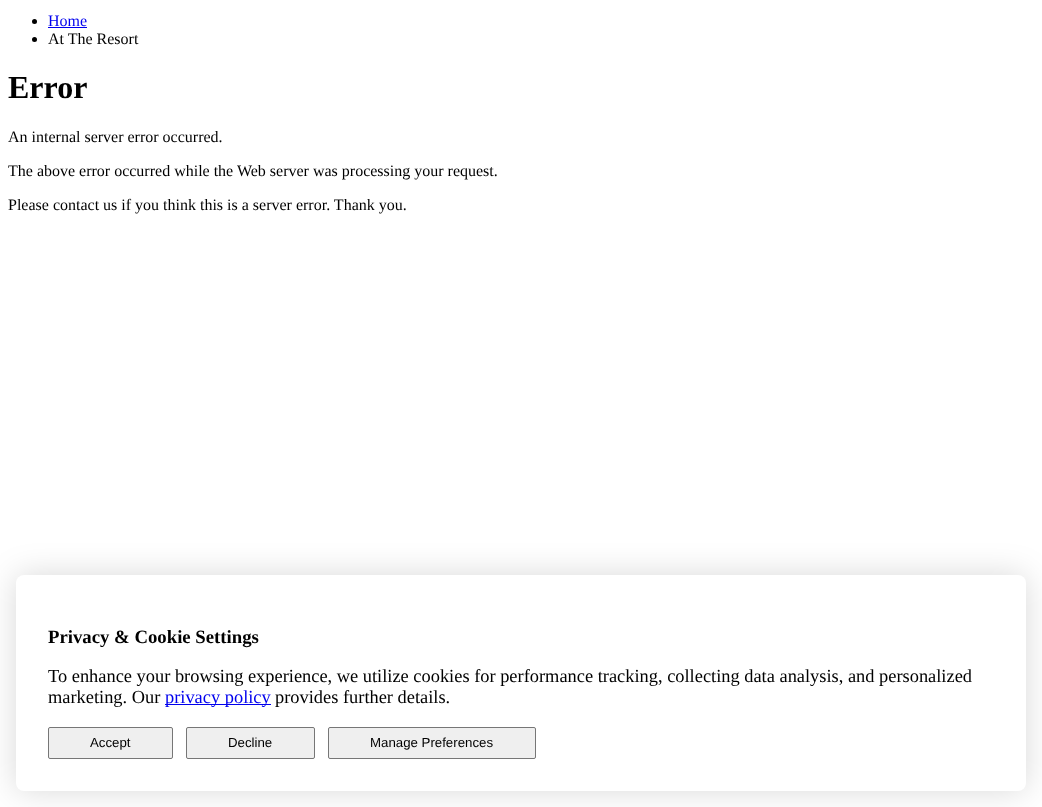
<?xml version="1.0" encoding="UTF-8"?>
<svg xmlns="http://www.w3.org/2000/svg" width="1042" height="807">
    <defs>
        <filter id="blur1" x="-50%" y="-200%" width="200%" height="500%"><feGaussianBlur stdDeviation="16"/></filter>
    </defs>
    <rect width="100%" height="100%" fill="#FFFFFF"/>
    <circle cx="34.5" cy="21.5" r="2.5" fill="#000000"/>
    <text x="48" y="26" font-family="Liberation Serif" font-size="16" fill="#0000EE">Home</text>
    <rect x="48" y="27" width="39" height="1" fill="#0000EE"/>
    <circle cx="34.5" cy="39.5" r="2.5" fill="#000000"/>
    <text x="48" y="44" font-family="Liberation Serif" font-size="16" fill="#000000">At The Resort</text>
    <text x="8" y="98" font-family="Liberation Serif" font-size="32" font-weight="700" fill="#000000">Error</text>
    <text x="8" y="142" font-family="Liberation Serif" font-size="16" fill="#000000">An internal server error occurred.</text>
    <text x="8" y="176" font-family="Liberation Serif" font-size="16" fill="#000000">The above error occurred while the Web server was processing your request.</text>
    <text x="8" y="210" font-family="Liberation Serif" font-size="16" fill="#000000">Please contact us if you think this is a server error. Thank you.</text>
    <rect x="16" y="575" width="1010" height="216" rx="8" fill="#05001F" fill-opacity="0.15" filter="url(#blur1)"/>
    <rect x="16" y="575" width="1010" height="216" rx="8" fill="#FFFFFF"/>
    <text x="48" y="643" font-family="Liberation Serif" font-size="18.75" font-weight="700" fill="#000000">Privacy &amp; Cookie Settings</text>
    <text font-family="Liberation Serif" font-size="18.4" fill="#000000">
        <tspan x="48" y="682">To enhance your browsing experience, we utilize cookies for performance tracking, collecting data analysis, and personalized</tspan>
        <tspan x="48" y="703">marketing. Our</tspan>
    </text>
    <rect x="165" y="704" width="106" height="1" fill="#0000EE"/>
    <text x="165" y="703" font-family="Liberation Serif" font-size="18.4" fill="#0000EE">privacy policy</text>
    <text x="275" y="703" font-family="Liberation Serif" font-size="18.4" fill="#000000">provides further details.</text>
    <rect x="48.5" y="727.5" width="124" height="31" rx="1.5" fill="#EFEFEF" stroke="#767676"/>
    <text x="90" y="747" font-family="Liberation Sans" font-size="13.25" fill="#000000">Accept</text>
    <rect x="186.5" y="727.5" width="128" height="31" rx="1.5" fill="#EFEFEF" stroke="#767676"/>
    <text x="228" y="747" font-family="Liberation Sans" font-size="13.25" fill="#000000">Decline</text>
    <rect x="328.5" y="727.5" width="207" height="31" rx="1.5" fill="#EFEFEF" stroke="#767676"/>
    <text x="370" y="747" font-family="Liberation Sans" font-size="13.25" fill="#000000">Manage Preferences</text>
</svg>
